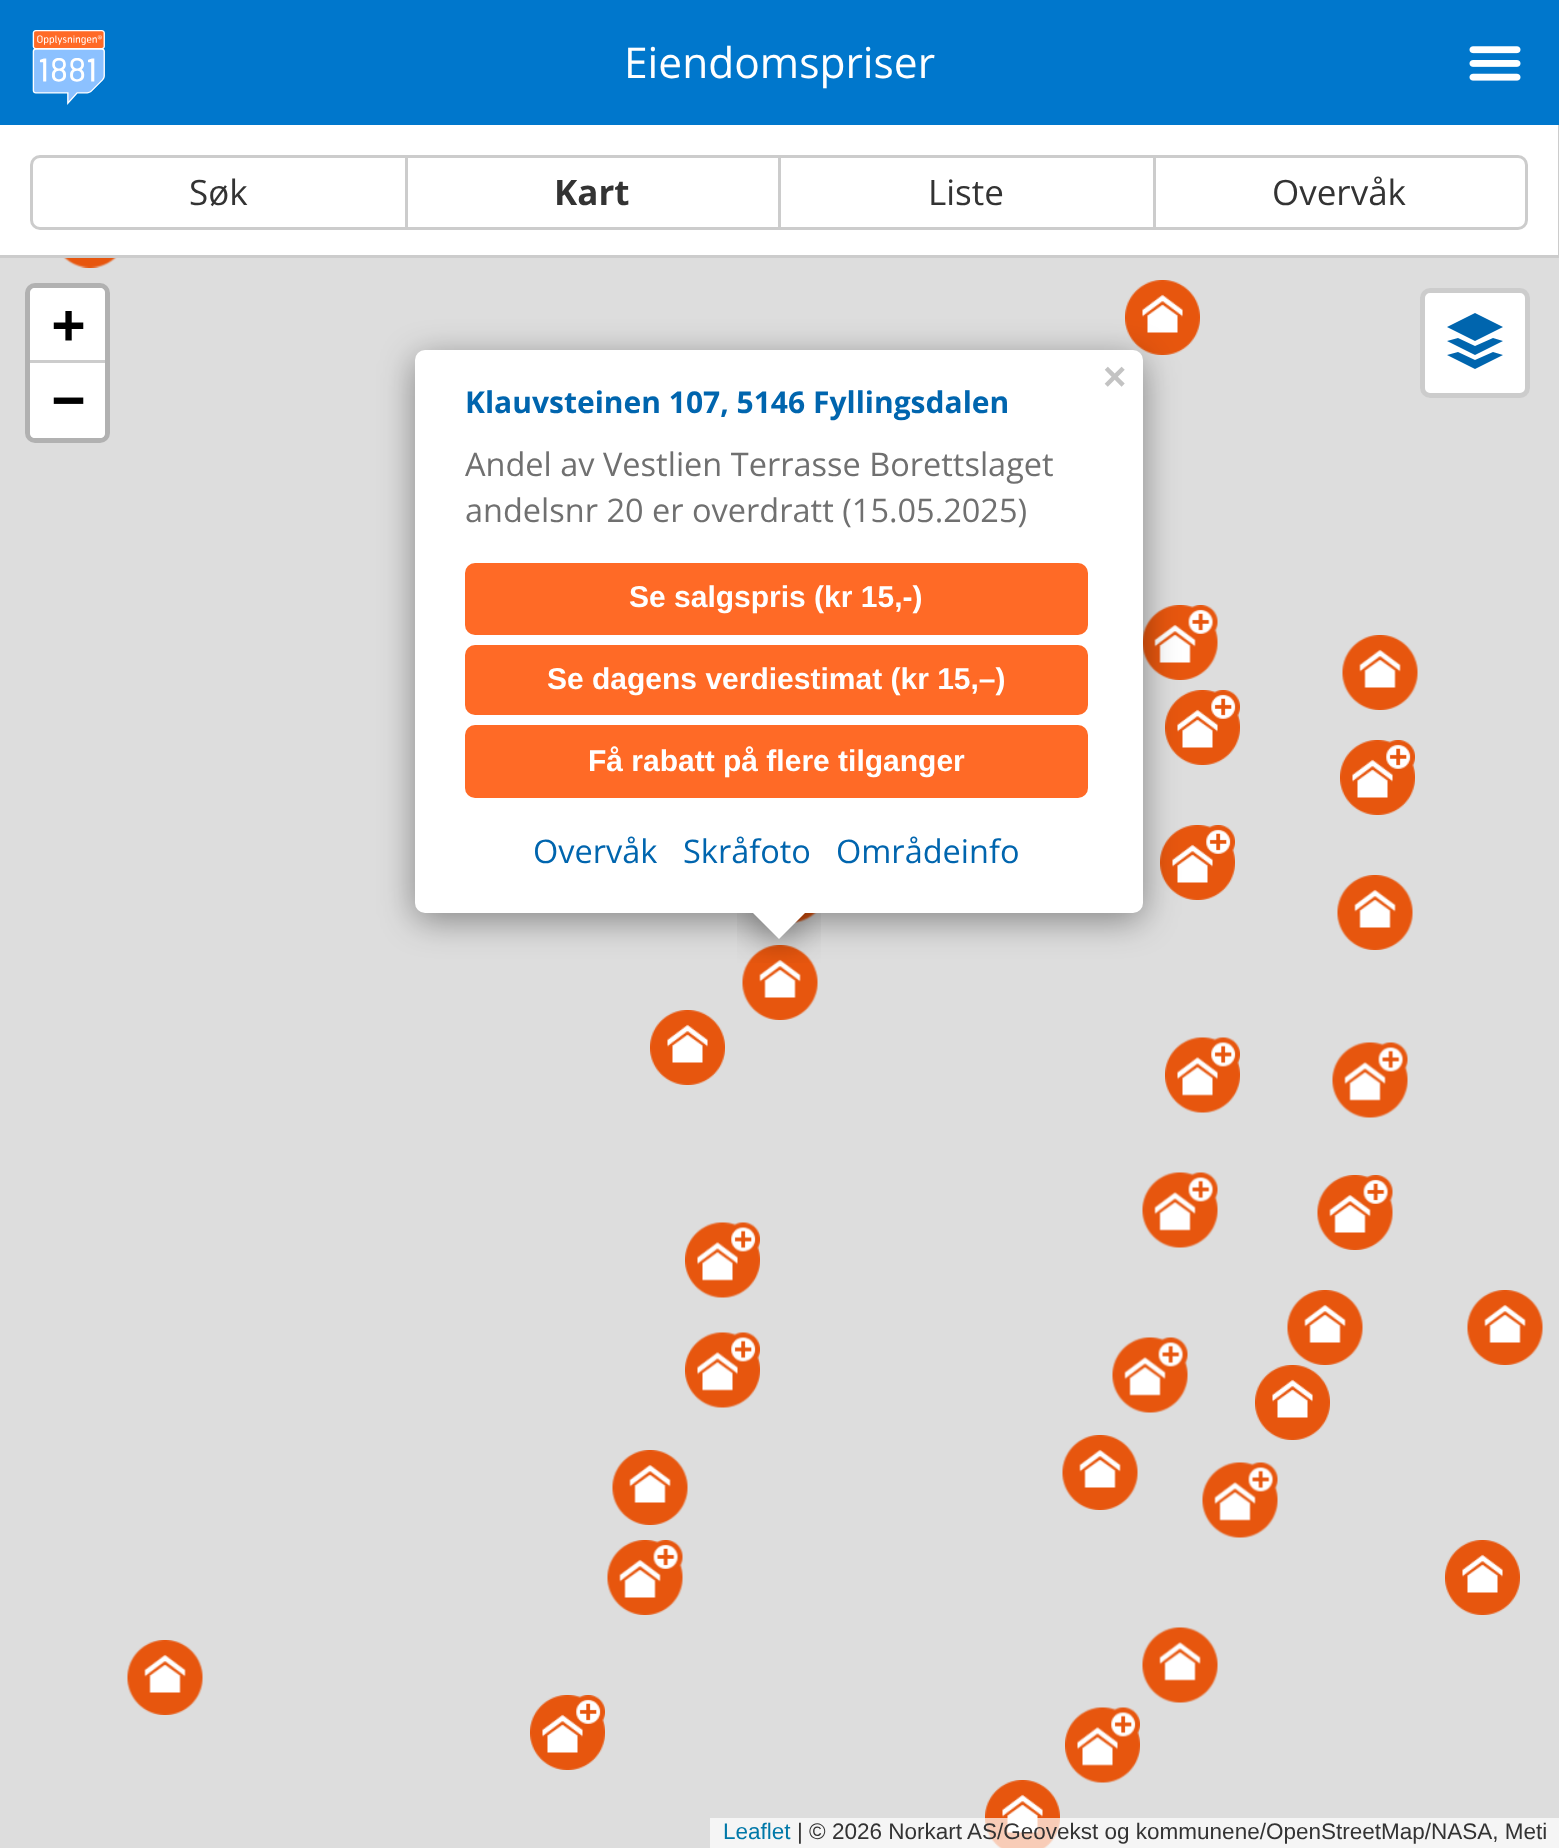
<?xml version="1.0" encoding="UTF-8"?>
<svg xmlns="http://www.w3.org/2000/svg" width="1559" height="1848">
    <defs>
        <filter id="blur1" x="-50%" y="-200%" width="200%" height="500%"><feGaussianBlur stdDeviation="17.5"/></filter>
        <clipPath id="clip1"><rect x="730" y="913" width="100" height="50"/></clipPath>
        <clipPath id="clip2"><rect x="730" y="913" width="100" height="50"/></clipPath>
    </defs>
    <rect width="100%" height="100%" fill="#FFFFFF"/>
    <rect x="0" y="0" width="1559" height="125" fill="#0077CC"/>
    <image x="32" y="30" width="73" height="75" href="img_01.png"/>
    <text x="624" y="78" font-family="Open Sans" font-size="42.5" fill="#FFFFFF">Eiendomspriser</text>
    <image x="1469" y="46" width="52" height="35" href="img_02.png"/>
    <rect x="1558" y="125" width="1" height="130" fill="#CCCCCC"/>
    <rect x="31.5" y="156.5" width="1495" height="72" rx="8.5" fill="none" stroke="#CCCCCC" stroke-width="3"/>
    <text x="189" y="205" font-family="Open Sans" font-size="35" fill="#333333">Søk</text>
    <rect x="405" y="158" width="3" height="70" fill="#CCCCCC"/>
    <text x="554" y="205" font-family="Open Sans" font-size="35" font-weight="700" fill="#333333">Kart</text>
    <rect x="778" y="158" width="3" height="70" fill="#CCCCCC"/>
    <text x="928" y="205" font-family="Open Sans" font-size="35" fill="#333333">Liste</text>
    <rect x="1153" y="158" width="3" height="70" fill="#CCCCCC"/>
    <text x="1272" y="205" font-family="Open Sans" font-size="35" fill="#333333">Overvåk</text>
    <rect x="0" y="258" width="1559" height="1590" fill="#DDDDDD"/>
    <rect x="0" y="255" width="1559" height="3" fill="#CCCCCC"/>
    <rect x="1420" y="288" width="110" height="110" rx="10" fill="#FFFFFF"/>
    <rect x="1422.5" y="290.5" width="105" height="105" rx="7.5" fill="none" stroke="#000000" stroke-opacity="0.2" stroke-width="5"/>
    <path d="M 1447 327 L 1475 341 L 1503 327 L 1475 313 Z M 1475 346 L 1458 338 L 1447 341 L 1475 355 L 1503 341 L 1493 338 Z M 1475 360 L 1458 352 L 1447 355 L 1475 369 L 1503 355 L 1493 352 Z" fill="#0065AE"/>
    <rect x="27.5" y="285.5" width="80" height="155" rx="7.5" fill="none" stroke="#B1B1B1" stroke-width="5"/>
    <path d="M 35 288 H 100 C 103 288 105 290 105 293 V 363 H 30 V 293 C 30 290 32 288 35 288 Z" fill="#FFFFFF"/>
    <rect x="30" y="360" width="75" height="3" fill="#CCCCCC"/>
    <text x="52" y="343" font-family="DejaVu Sans Mono" font-size="55" font-weight="700" fill="#000000">+</text>
    <path d="M 30 363 H 105 V 433 C 105 436 103 438 100 438 H 35 C 32 438 30 436 30 433 Z" fill="#FFFFFF"/>
    <text x="52" y="418" font-family="DejaVu Sans Mono" font-size="55" font-weight="700" fill="#000000">−</text>
    <image x="985" y="1780" width="75" height="68" href="img_13.png"/>
    <rect x="710" y="1818" width="849" height="30" fill="#FFFFFF" fill-opacity="0.7"/>
    <text x="723" y="1839" font-family="Liberation Sans" font-size="22.5" fill="#0078A8">Leaflet</text>
    <text x="797" y="1839" font-family="Liberation Sans" font-size="22.5" fill="#333333">| © 2026 Norkart AS/Geovekst og kommunene/OpenStreetMap/NASA, Meti</text>
    <image x="63" y="258" width="54" height="10" href="img_03.png"/>
    <image x="1125" y="280" width="75" height="75" href="img_04.png"/>
    <image x="1143" y="605" width="75" height="75" href="img_05.png"/>
    <image x="1342" y="635" width="76" height="75" href="img_06.png"/>
    <image x="1165" y="690" width="75" height="75" href="img_07.png"/>
    <image x="1340" y="740" width="75" height="75" href="img_07.png"/>
    <image x="1160" y="825" width="75" height="75" href="img_07.png"/>
    <image x="795" y="913" width="22" height="10" href="img_08.png"/>
    <image x="1337" y="875" width="76" height="75" href="img_06.png"/>
    <image x="742" y="945" width="76" height="75" href="img_06.png"/>
    <image x="650" y="1010" width="75" height="75" href="img_04.png"/>
    <image x="1165" y="1037" width="75" height="76" href="img_09.png"/>
    <image x="1332" y="1042" width="76" height="76" href="img_10.png"/>
    <image x="1142" y="1172" width="76" height="76" href="img_10.png"/>
    <image x="1317" y="1175" width="76" height="75" href="img_11.png"/>
    <image x="685" y="1222" width="75" height="76" href="img_09.png"/>
    <image x="685" y="1332" width="75" height="76" href="img_09.png"/>
    <image x="1112" y="1337" width="76" height="76" href="img_10.png"/>
    <image x="1287" y="1290" width="76" height="75" href="img_06.png"/>
    <image x="1467" y="1290" width="76" height="75" href="img_06.png"/>
    <image x="1255" y="1365" width="75" height="75" href="img_04.png"/>
    <image x="612" y="1450" width="76" height="75" href="img_06.png"/>
    <image x="1062" y="1435" width="76" height="75" href="img_06.png"/>
    <image x="1202" y="1462" width="76" height="76" href="img_10.png"/>
    <image x="607" y="1540" width="76" height="75" href="img_11.png"/>
    <image x="1445" y="1540" width="75" height="75" href="img_04.png"/>
    <image x="127" y="1640" width="76" height="75" href="img_06.png"/>
    <image x="1142" y="1627" width="76" height="76" href="img_12.png"/>
    <image x="530" y="1695" width="75" height="75" href="img_07.png"/>
    <image x="1065" y="1707" width="75" height="76" href="img_09.png"/>
    <rect x="415" y="358" width="728" height="562" rx="10" fill="#000000" fill-opacity="0.4" filter="url(#blur1)"/>
    <rect x="415" y="350" width="728" height="563" rx="10" fill="#FFFFFF"/>
    <text x="1103" y="390" font-family="Liberation Sans" font-size="40" font-weight="700" fill="#C3C3C3">×</text>
    <text x="465" y="413" font-family="Open Sans" font-size="30" font-weight="700" fill="#0065AE">Klauvsteinen 107, 5146 Fyllingsdalen</text>
    <text font-family="Open Sans" font-size="32.5" fill="#707070">
        <tspan x="465" y="476">Andel av Vestlien Terrasse Borettslaget</tspan>
        <tspan x="465" y="522">andelsnr 20 er overdratt (15.05.2025)</tspan>
    </text>
    <rect x="465" y="563" width="623" height="72" rx="10" fill="#FF6A26"/>
    <text x="629" y="607" font-family="Liberation Sans" font-size="30" font-weight="700" fill="#FFFFFF">Se salgspris (kr 15,-)</text>
    <rect x="465" y="645" width="623" height="70" rx="10" fill="#FF6A26"/>
    <text x="547" y="689" font-family="Liberation Sans" font-size="30" font-weight="700" fill="#FFFFFF">Se dagens verdiestimat (kr 15,–)</text>
    <rect x="465" y="725" width="623" height="73" rx="10" fill="#FF6A26"/>
    <text x="588" y="771" font-family="Liberation Sans" font-size="30" font-weight="700" fill="#FFFFFF">Få rabatt på flere tilganger</text>
    <text x="533" y="863" font-family="Open Sans" font-size="32.5" fill="#0065AE">Overvåk</text>
    <text x="683" y="863" font-family="Open Sans" font-size="32.5" fill="#0065AE">Skråfoto</text>
    <text x="836" y="863" font-family="Open Sans" font-size="32.5" fill="#0065AE">Områdeinfo</text>
    <g clip-path="url(#clip1)">
        <rect x="758" y="895" width="42" height="43" fill="#000000" fill-opacity="0.4" filter="url(#blur1)"/>
    </g>
    <g clip-path="url(#clip2)">
        <path d="M 779 879 L 809 909 L 779 939 L 749 909 Z" fill="#FFFFFF"/>
    </g>
</svg>
